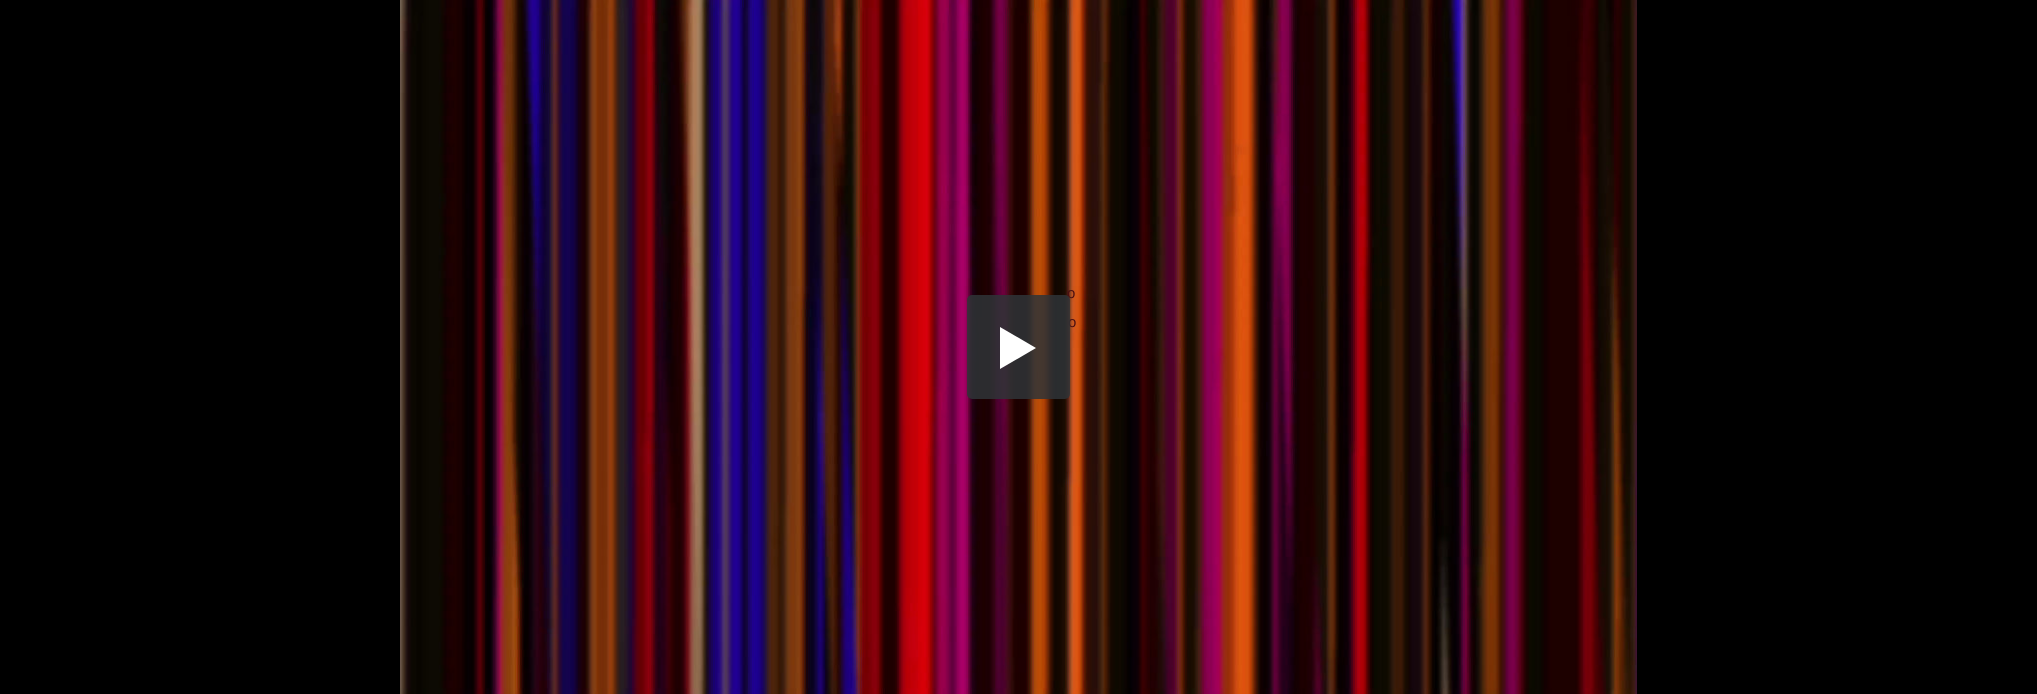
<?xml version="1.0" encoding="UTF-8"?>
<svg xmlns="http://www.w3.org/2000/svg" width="2037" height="694">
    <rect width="100%" height="100%" fill="#000000"/>
    <image x="400" y="0" width="1237" height="694" href="img_01.png"/>
    <text x="1067" y="298" font-family="Liberation Sans" font-size="15" fill="#4A1012">o</text>
    <text x="1068" y="327" font-family="Liberation Sans" font-size="15" fill="#4A1012">o</text>
    <rect x="967" y="295" width="103" height="104" rx="5" fill="#2F3437" fill-opacity="0.85"/>
    <path d="M 1000 327 V 369 L 1036 348 Z" fill="#FFFFFF"/>
</svg>
